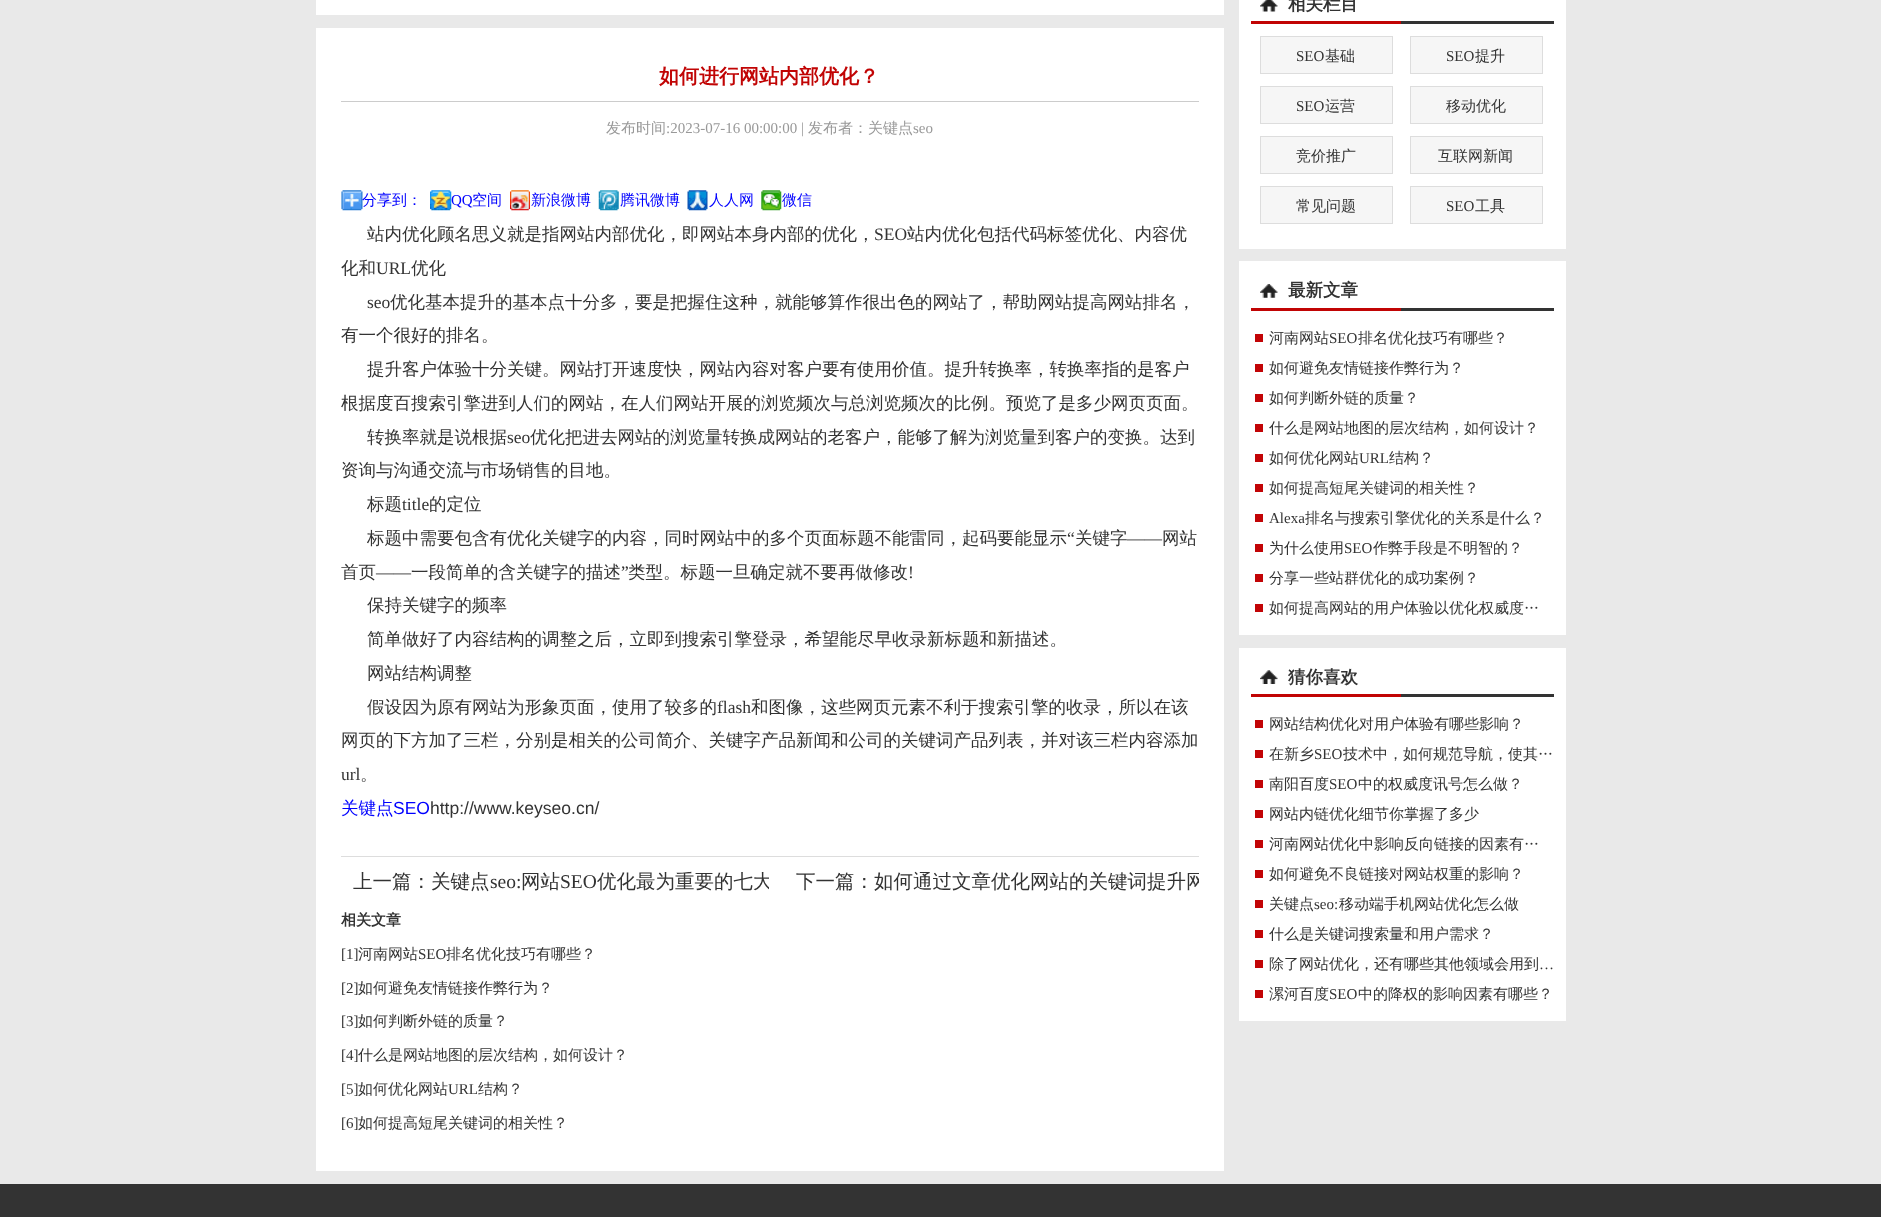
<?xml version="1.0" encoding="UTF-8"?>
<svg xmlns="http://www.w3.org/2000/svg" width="1881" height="1217">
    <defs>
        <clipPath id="clip1"><rect x="354" y="864" width="415" height="34"/></clipPath>
        <clipPath id="clip2"><rect x="796" y="864" width="403" height="34"/></clipPath>
    </defs>
    <rect width="100%" height="100%" fill="#E9E9E9"/>
    <rect x="316" y="0" width="908" height="15" fill="#FFFFFF"/>
    <rect x="316" y="28" width="908" height="1143" fill="#FFFFFF"/>
    <rect x="341" y="101" width="858" height="1" fill="#CCCCCC"/>
    <text x="659" y="83" font-family="WenQuanYi Zen Hei" font-size="20" font-weight="700" fill="#C10404">如何进行网站内部优化？</text>
    <text x="606" y="133" font-family="WenQuanYi Zen Hei" font-size="15" font-weight="500" fill="#999999">发布时间</text>
    <text x="666" y="133" font-family="Liberation Serif" font-size="15" fill="#999999">:2023-07-16 00:00:00 |</text>
    <text x="808" y="133" font-family="WenQuanYi Zen Hei" font-size="15" font-weight="500" fill="#999999">发布者：关键点</text>
    <text x="913" y="133" font-family="Liberation Serif" font-size="15" fill="#999999">seo</text>
    <image x="341" y="190" width="22" height="21" href="img_01.png"/>
    <text x="362" y="205" font-family="WenQuanYi Zen Hei" font-size="15" font-weight="500" fill="#0000FF">分享到：</text>
    <image x="430" y="190" width="22" height="21" href="img_02.png"/>
    <text x="451" y="205" font-family="Liberation Serif" font-size="15" fill="#0000FF">QQ</text>
    <text x="472" y="205" font-family="WenQuanYi Zen Hei" font-size="15" font-weight="500" fill="#0000FF">空间</text>
    <image x="510" y="190" width="20" height="21" href="img_03.png"/>
    <text x="531" y="205" font-family="WenQuanYi Zen Hei" font-size="15" font-weight="500" fill="#0000FF">新浪微博</text>
    <image x="598" y="190" width="21" height="21" href="img_04.png"/>
    <text x="620" y="205" font-family="WenQuanYi Zen Hei" font-size="15" font-weight="500" fill="#0000FF">腾讯微博</text>
    <image x="687" y="190" width="21" height="21" href="img_05.png"/>
    <text x="709" y="205" font-family="WenQuanYi Zen Hei" font-size="15" font-weight="500" fill="#0000FF">人人网</text>
    <image x="761" y="190" width="21" height="21" href="img_06.png"/>
    <text x="782" y="205" font-family="WenQuanYi Zen Hei" font-size="15" font-weight="500" fill="#0000FF">微信</text>
    <text x="367" y="240" font-family="WenQuanYi Zen Hei" font-size="17.5" font-weight="500" fill="#333333">站内优化顾名思义就是指网站内部优化，即网站本身内部的优化，</text>
    <text x="874" y="240" font-family="Liberation Serif" font-size="17.5" fill="#333333">SEO</text>
    <text x="907" y="240" font-family="WenQuanYi Zen Hei" font-size="17.5" font-weight="500" fill="#333333">站内优化包括代码标签优化、内容优</text>
    <text x="341" y="274" font-family="WenQuanYi Zen Hei" font-size="17.5" font-weight="500" fill="#333333">化和</text>
    <text x="376" y="274" font-family="Liberation Serif" font-size="17.5" fill="#333333">URL</text>
    <text x="411" y="274" font-family="WenQuanYi Zen Hei" font-size="17.5" font-weight="500" fill="#333333">优化</text>
    <text x="367" y="308" font-family="Liberation Serif" font-size="17.5" fill="#333333">seo</text>
    <text x="390" y="308" font-family="WenQuanYi Zen Hei" font-size="17.5" font-weight="500" fill="#333333">优化基本提升的基本点十分多，要是把握住这种，就能够算作很出色的网站了，帮助网站提高网站排名，</text>
    <text x="341" y="341" font-family="WenQuanYi Zen Hei" font-size="17.5" font-weight="500" fill="#333333">有一个很好的排名。</text>
    <text x="367" y="375" font-family="WenQuanYi Zen Hei" font-size="17.5" font-weight="500" fill="#333333">提升客户体验十分关键。网站打开速度快，网站內容对客户要有使用价值。提升转换率，转换率指的是客户</text>
    <text x="341" y="409" font-family="WenQuanYi Zen Hei" font-size="17.5" font-weight="500" fill="#333333">根据度百搜索引擎进到人们的网站，在人们网站开展的浏览频次与总浏览频次的比例。预览了是多少网页页面。</text>
    <text x="367" y="443" font-family="WenQuanYi Zen Hei" font-size="17.5" font-weight="500" fill="#333333">转换率就是说根据</text>
    <text x="507" y="443" font-family="Liberation Serif" font-size="17.5" fill="#333333">seo</text>
    <text x="530" y="443" font-family="WenQuanYi Zen Hei" font-size="17.5" font-weight="500" fill="#333333">优化把进去网站的浏览量转换成网站的老客户，能够了解为浏览量到客户的变换。达到</text>
    <text x="341" y="476" font-family="WenQuanYi Zen Hei" font-size="17.5" font-weight="500" fill="#333333">资询与沟通交流与市场销售的目地。</text>
    <text x="367" y="510" font-family="WenQuanYi Zen Hei" font-size="17.5" font-weight="500" fill="#333333">标题</text>
    <text x="402" y="510" font-family="Liberation Serif" font-size="17.5" fill="#333333">title</text>
    <text x="429" y="510" font-family="WenQuanYi Zen Hei" font-size="17.5" font-weight="500" fill="#333333">的定位</text>
    <text x="367" y="544" font-family="WenQuanYi Zen Hei" font-size="17.5" font-weight="500" fill="#333333">标题中需要包含有优化关键字的内容，同时网站中的多个页面标题不能雷同，起码要能显示</text>
    <text x="1067" y="544" font-family="Liberation Serif" font-size="17.5" fill="#333333">“</text>
    <text x="1075" y="544" font-family="WenQuanYi Zen Hei" font-size="17.5" font-weight="500" fill="#333333">关键字</text>
    <text x="1162" y="544" font-family="WenQuanYi Zen Hei" font-size="17.5" font-weight="500" fill="#333333">网站</text>
    <text x="1127" y="544" font-family="Liberation Serif" font-size="17.5" fill="#333333">——</text>
    <text x="341" y="578" font-family="WenQuanYi Zen Hei" font-size="17.5" font-weight="500" fill="#333333">首页</text>
    <text x="376" y="578" font-family="Liberation Serif" font-size="17.5" fill="#333333">——</text>
    <text x="411" y="578" font-family="WenQuanYi Zen Hei" font-size="17.5" font-weight="500" fill="#333333">一段简单的含关键字的描述</text>
    <text x="621" y="578" font-family="Liberation Serif" font-size="17.5" fill="#333333">”</text>
    <text x="628" y="578" font-family="WenQuanYi Zen Hei" font-size="17.5" font-weight="500" fill="#333333">类型。标题一旦确定就不要再做修改</text>
    <text x="908" y="578" font-family="Liberation Serif" font-size="17.5" fill="#333333">!</text>
    <text font-family="WenQuanYi Zen Hei" font-size="17.5" font-weight="500" fill="#333333">
        <tspan x="367" y="611">保持关键字的频率</tspan>
        <tspan x="367" y="645">简单做好了内容结构的调整之后，立即到搜索引擎登录，希望能尽早收录新标题和新描述。</tspan>
        <tspan x="367" y="679">网站结构调整</tspan>
        <tspan x="367" y="713">假设因为原有网站为形象页面，使用了较多的</tspan>
    </text>
    <text x="717" y="713" font-family="Liberation Serif" font-size="17.5" fill="#333333">flash</text>
    <text x="751" y="713" font-family="WenQuanYi Zen Hei" font-size="17.5" font-weight="500" fill="#333333">和图像，这些网页元素不利于搜索引擎的收录，所以在该</text>
    <text x="341" y="746" font-family="WenQuanYi Zen Hei" font-size="17.5" font-weight="500" fill="#333333">网页的下方加了三栏，分别是相关的公司简介、关键字产品新闻和公司的关键词产品列表，并对该三栏内容添加</text>
    <text x="341" y="780" font-family="Liberation Serif" font-size="17.5" fill="#333333">url</text>
    <text x="360" y="780" font-family="WenQuanYi Zen Hei" font-size="17.5" font-weight="500" fill="#333333">。</text>
    <text x="341" y="814" font-family="WenQuanYi Zen Hei" font-size="17.5" font-weight="500" fill="#0000FF">关键点</text>
    <text x="393" y="814" font-family="Liberation Sans" font-size="17.5" fill="#0000FF">SEO</text>
    <text x="430" y="814" font-family="Liberation Sans" font-size="17.5" fill="#333333">http://www.keyseo.cn/</text>
    <rect x="341" y="856" width="858" height="1" fill="#DDDDDD"/>
    <text x="353" y="888" font-family="WenQuanYi Zen Hei" font-size="19.5" font-weight="500" fill="#333333">上一篇：关键点</text>
    <text x="490" y="888" font-family="Liberation Serif" font-size="19.5" fill="#333333">seo:</text>
    <text x="521" y="888" font-family="WenQuanYi Zen Hei" font-size="19.5" font-weight="500" fill="#333333">网站</text>
    <text x="560" y="888" font-family="Liberation Serif" font-size="19.5" fill="#333333">SEO</text>
    <g clip-path="url(#clip1)">
        <text x="597" y="888" font-family="WenQuanYi Zen Hei" font-size="19.5" font-weight="500" fill="#333333">优化最为重要的七大</text>
    </g>
    <text x="796" y="888" font-family="WenQuanYi Zen Hei" font-size="19.5" font-weight="500" fill="#333333">下一篇：</text>
    <g clip-path="url(#clip2)">
        <text x="874" y="888" font-family="WenQuanYi Zen Hei" font-size="19.5" font-weight="500" fill="#333333">如何通过文章优化网站的关键词提升网</text>
    </g>
    <text x="341" y="925" font-family="WenQuanYi Zen Hei" font-size="15" font-weight="700" fill="#333333">相关文章</text>
    <text x="341" y="959" font-family="Liberation Serif" font-size="15" fill="#333333">[1]</text>
    <text x="358" y="959" font-family="WenQuanYi Zen Hei" font-size="15" font-weight="500" fill="#333333">河南网站</text>
    <text x="418" y="959" font-family="Liberation Serif" font-size="15" fill="#333333">SEO</text>
    <text x="446" y="959" font-family="WenQuanYi Zen Hei" font-size="15" font-weight="500" fill="#333333">排名优化技巧有哪些？</text>
    <text x="341" y="993" font-family="Liberation Serif" font-size="15" fill="#333333">[2]</text>
    <text x="358" y="993" font-family="WenQuanYi Zen Hei" font-size="15" font-weight="500" fill="#333333">如何避免友情链接作弊行为？</text>
    <text x="341" y="1026" font-family="Liberation Serif" font-size="15" fill="#333333">[3]</text>
    <text x="358" y="1026" font-family="WenQuanYi Zen Hei" font-size="15" font-weight="500" fill="#333333">如何判断外链的质量？</text>
    <text x="341" y="1060" font-family="Liberation Serif" font-size="15" fill="#333333">[4]</text>
    <text x="358" y="1060" font-family="WenQuanYi Zen Hei" font-size="15" font-weight="500" fill="#333333">什么是网站地图的层次结构，如何设计？</text>
    <text x="341" y="1094" font-family="Liberation Serif" font-size="15" fill="#333333">[5]</text>
    <text x="358" y="1094" font-family="WenQuanYi Zen Hei" font-size="15" font-weight="500" fill="#333333">如何优化网站</text>
    <text x="448" y="1094" font-family="Liberation Serif" font-size="15" fill="#333333">URL</text>
    <text x="478" y="1094" font-family="WenQuanYi Zen Hei" font-size="15" font-weight="500" fill="#333333">结构？</text>
    <text x="341" y="1128" font-family="Liberation Serif" font-size="15" fill="#333333">[6]</text>
    <text x="358" y="1128" font-family="WenQuanYi Zen Hei" font-size="15" font-weight="500" fill="#333333">如何提高短尾关键词的相关性？</text>
    <rect x="1239" y="0" width="327" height="249" fill="#FFFFFF"/>
    <rect x="1401" y="21" width="153" height="3" fill="#333333"/>
    <image x="1260" y="0" width="18" height="12" href="img_07.png"/>
    <rect x="1251" y="21" width="150" height="3" fill="#C10404"/>
    <text x="1288" y="10" font-family="WenQuanYi Zen Hei" font-size="17.5" font-weight="700" fill="#333333">相关栏目</text>
    <rect x="1260.5" y="36.5" width="132" height="37" fill="#F6F6F6" stroke="#DDDDDD"/>
    <text x="1296" y="61" font-family="Liberation Serif" font-size="15" fill="#333333">SEO</text>
    <text x="1325" y="61" font-family="WenQuanYi Zen Hei" font-size="15" font-weight="500" fill="#333333">基础</text>
    <rect x="1410.5" y="36.5" width="132" height="37" fill="#F6F6F6" stroke="#DDDDDD"/>
    <text x="1446" y="61" font-family="Liberation Serif" font-size="15" fill="#333333">SEO</text>
    <text x="1475" y="61" font-family="WenQuanYi Zen Hei" font-size="15" font-weight="500" fill="#333333">提升</text>
    <rect x="1260.5" y="86.5" width="132" height="37" fill="#F6F6F6" stroke="#DDDDDD"/>
    <text x="1296" y="111" font-family="Liberation Serif" font-size="15" fill="#333333">SEO</text>
    <text x="1325" y="111" font-family="WenQuanYi Zen Hei" font-size="15" font-weight="500" fill="#333333">运营</text>
    <rect x="1410.5" y="86.5" width="132" height="37" fill="#F6F6F6" stroke="#DDDDDD"/>
    <text x="1446" y="111" font-family="WenQuanYi Zen Hei" font-size="15" font-weight="500" fill="#333333">移动优化</text>
    <rect x="1260.5" y="136.5" width="132" height="37" fill="#F6F6F6" stroke="#DDDDDD"/>
    <text x="1296" y="161" font-family="WenQuanYi Zen Hei" font-size="15" font-weight="500" fill="#333333">竞价推广</text>
    <rect x="1410.5" y="136.5" width="132" height="37" fill="#F6F6F6" stroke="#DDDDDD"/>
    <text x="1438" y="161" font-family="WenQuanYi Zen Hei" font-size="15" font-weight="500" fill="#333333">互联网新闻</text>
    <rect x="1260.5" y="186.5" width="132" height="37" fill="#F6F6F6" stroke="#DDDDDD"/>
    <text x="1296" y="211" font-family="WenQuanYi Zen Hei" font-size="15" font-weight="500" fill="#333333">常见问题</text>
    <rect x="1410.5" y="186.5" width="132" height="37" fill="#F6F6F6" stroke="#DDDDDD"/>
    <text x="1446" y="211" font-family="Liberation Serif" font-size="15" fill="#333333">SEO</text>
    <text x="1475" y="211" font-family="WenQuanYi Zen Hei" font-size="15" font-weight="500" fill="#333333">工具</text>
    <rect x="1239" y="261" width="327" height="374" fill="#FFFFFF"/>
    <rect x="1401" y="308" width="153" height="3" fill="#333333"/>
    <image x="1260" y="284" width="18" height="14" href="img_08.png"/>
    <rect x="1251" y="308" width="150" height="3" fill="#C10404"/>
    <text x="1288" y="296" font-family="WenQuanYi Zen Hei" font-size="17.5" font-weight="700" fill="#333333">最新文章</text>
    <rect x="1255" y="334" width="8" height="8" fill="#C20406"/>
    <text x="1269" y="343" font-family="WenQuanYi Zen Hei" font-size="15" font-weight="500" fill="#333333">河南网站</text>
    <text x="1329" y="343" font-family="Liberation Serif" font-size="15" fill="#333333">SEO</text>
    <text x="1358" y="343" font-family="WenQuanYi Zen Hei" font-size="15" font-weight="500" fill="#333333">排名优化技巧有哪些？</text>
    <rect x="1255" y="364" width="8" height="8" fill="#C20406"/>
    <text x="1269" y="373" font-family="WenQuanYi Zen Hei" font-size="15" font-weight="500" fill="#333333">如何避免友情链接作弊行为？</text>
    <rect x="1255" y="394" width="8" height="8" fill="#C20406"/>
    <text x="1269" y="403" font-family="WenQuanYi Zen Hei" font-size="15" font-weight="500" fill="#333333">如何判断外链的质量？</text>
    <rect x="1255" y="424" width="8" height="8" fill="#C20406"/>
    <text x="1269" y="433" font-family="WenQuanYi Zen Hei" font-size="15" font-weight="500" fill="#333333">什么是网站地图的层次结构，如何设计？</text>
    <rect x="1255" y="454" width="8" height="8" fill="#C20406"/>
    <text x="1269" y="463" font-family="WenQuanYi Zen Hei" font-size="15" font-weight="500" fill="#333333">如何优化网站</text>
    <text x="1359" y="463" font-family="Liberation Serif" font-size="15" fill="#333333">URL</text>
    <text x="1389" y="463" font-family="WenQuanYi Zen Hei" font-size="15" font-weight="500" fill="#333333">结构？</text>
    <rect x="1255" y="484" width="8" height="8" fill="#C20406"/>
    <text x="1269" y="493" font-family="WenQuanYi Zen Hei" font-size="15" font-weight="500" fill="#333333">如何提高短尾关键词的相关性？</text>
    <rect x="1255" y="514" width="8" height="8" fill="#C20406"/>
    <text x="1269" y="523" font-family="Liberation Serif" font-size="15" fill="#333333">Alexa</text>
    <text x="1305" y="523" font-family="WenQuanYi Zen Hei" font-size="15" font-weight="500" fill="#333333">排名与搜索引擎优化的关系是什么？</text>
    <rect x="1255" y="544" width="8" height="8" fill="#C20406"/>
    <text x="1269" y="553" font-family="WenQuanYi Zen Hei" font-size="15" font-weight="500" fill="#333333">为什么使用</text>
    <text x="1344" y="553" font-family="Liberation Serif" font-size="15" fill="#333333">SEO</text>
    <text x="1373" y="553" font-family="WenQuanYi Zen Hei" font-size="15" font-weight="500" fill="#333333">作弊手段是不明智的？</text>
    <rect x="1255" y="574" width="8" height="8" fill="#C20406"/>
    <text x="1269" y="583" font-family="WenQuanYi Zen Hei" font-size="15" font-weight="500" fill="#333333">分享一些站群优化的成功案例？</text>
    <rect x="1255" y="604" width="8" height="8" fill="#C20406"/>
    <text x="1269" y="613" font-family="WenQuanYi Zen Hei" font-size="15" font-weight="500" fill="#333333">如何提高网站的用户体验以优化权威度…</text>
    <rect x="1239" y="648" width="327" height="373" fill="#FFFFFF"/>
    <rect x="1401" y="694" width="153" height="3" fill="#333333"/>
    <image x="1260" y="670" width="18" height="14" href="img_09.png"/>
    <rect x="1251" y="694" width="150" height="3" fill="#C10404"/>
    <text x="1288" y="683" font-family="WenQuanYi Zen Hei" font-size="17.5" font-weight="700" fill="#333333">猜你喜欢</text>
    <rect x="1255" y="720" width="8" height="8" fill="#C20406"/>
    <text x="1269" y="729" font-family="WenQuanYi Zen Hei" font-size="15" font-weight="500" fill="#333333">网站结构优化对用户体验有哪些影响？</text>
    <rect x="1255" y="750" width="8" height="8" fill="#C20406"/>
    <text x="1269" y="759" font-family="WenQuanYi Zen Hei" font-size="15" font-weight="500" fill="#333333">在新乡</text>
    <text x="1314" y="759" font-family="Liberation Serif" font-size="15" fill="#333333">SEO</text>
    <text x="1343" y="759" font-family="WenQuanYi Zen Hei" font-size="15" font-weight="500" fill="#333333">技术中，如何规范导航，使其…</text>
    <rect x="1255" y="780" width="8" height="8" fill="#C20406"/>
    <text x="1269" y="789" font-family="WenQuanYi Zen Hei" font-size="15" font-weight="500" fill="#333333">南阳百度</text>
    <text x="1329" y="789" font-family="Liberation Serif" font-size="15" fill="#333333">SEO</text>
    <text x="1358" y="789" font-family="WenQuanYi Zen Hei" font-size="15" font-weight="500" fill="#333333">中的权威度讯号怎么做？</text>
    <rect x="1255" y="810" width="8" height="8" fill="#C20406"/>
    <text x="1269" y="819" font-family="WenQuanYi Zen Hei" font-size="15" font-weight="500" fill="#333333">网站内链优化细节你掌握了多少</text>
    <rect x="1255" y="840" width="8" height="8" fill="#C20406"/>
    <text x="1269" y="849" font-family="WenQuanYi Zen Hei" font-size="15" font-weight="500" fill="#333333">河南网站优化中影响反向链接的因素有…</text>
    <rect x="1255" y="870" width="8" height="8" fill="#C20406"/>
    <text x="1269" y="879" font-family="WenQuanYi Zen Hei" font-size="15" font-weight="500" fill="#333333">如何避免不良链接对网站权重的影响？</text>
    <rect x="1255" y="900" width="8" height="8" fill="#C20406"/>
    <text x="1269" y="909" font-family="WenQuanYi Zen Hei" font-size="15" font-weight="500" fill="#333333">关键点</text>
    <text x="1314" y="909" font-family="Liberation Serif" font-size="15" fill="#333333">seo:</text>
    <text x="1339" y="909" font-family="WenQuanYi Zen Hei" font-size="15" font-weight="500" fill="#333333">移动端手机网站优化怎么做</text>
    <rect x="1255" y="930" width="8" height="8" fill="#C20406"/>
    <text x="1269" y="939" font-family="WenQuanYi Zen Hei" font-size="15" font-weight="500" fill="#333333">什么是关键词搜索量和用户需求？</text>
    <rect x="1255" y="960" width="8" height="8" fill="#C20406"/>
    <text x="1269" y="969" font-family="WenQuanYi Zen Hei" font-size="15" font-weight="500" fill="#333333">除了网站优化，还有哪些其他领域会用到</text>
    <text x="1539" y="969" font-family="Liberation Serif" font-size="15" fill="#333333">…</text>
    <rect x="1255" y="990" width="8" height="8" fill="#C20406"/>
    <text x="1269" y="999" font-family="WenQuanYi Zen Hei" font-size="15" font-weight="500" fill="#333333">漯河百度</text>
    <text x="1329" y="999" font-family="Liberation Serif" font-size="15" fill="#333333">SEO</text>
    <text x="1358" y="999" font-family="WenQuanYi Zen Hei" font-size="15" font-weight="500" fill="#333333">中的降权的影响因素有哪些？</text>
    <rect x="0" y="1184" width="1881" height="33" fill="#333333"/>
</svg>
